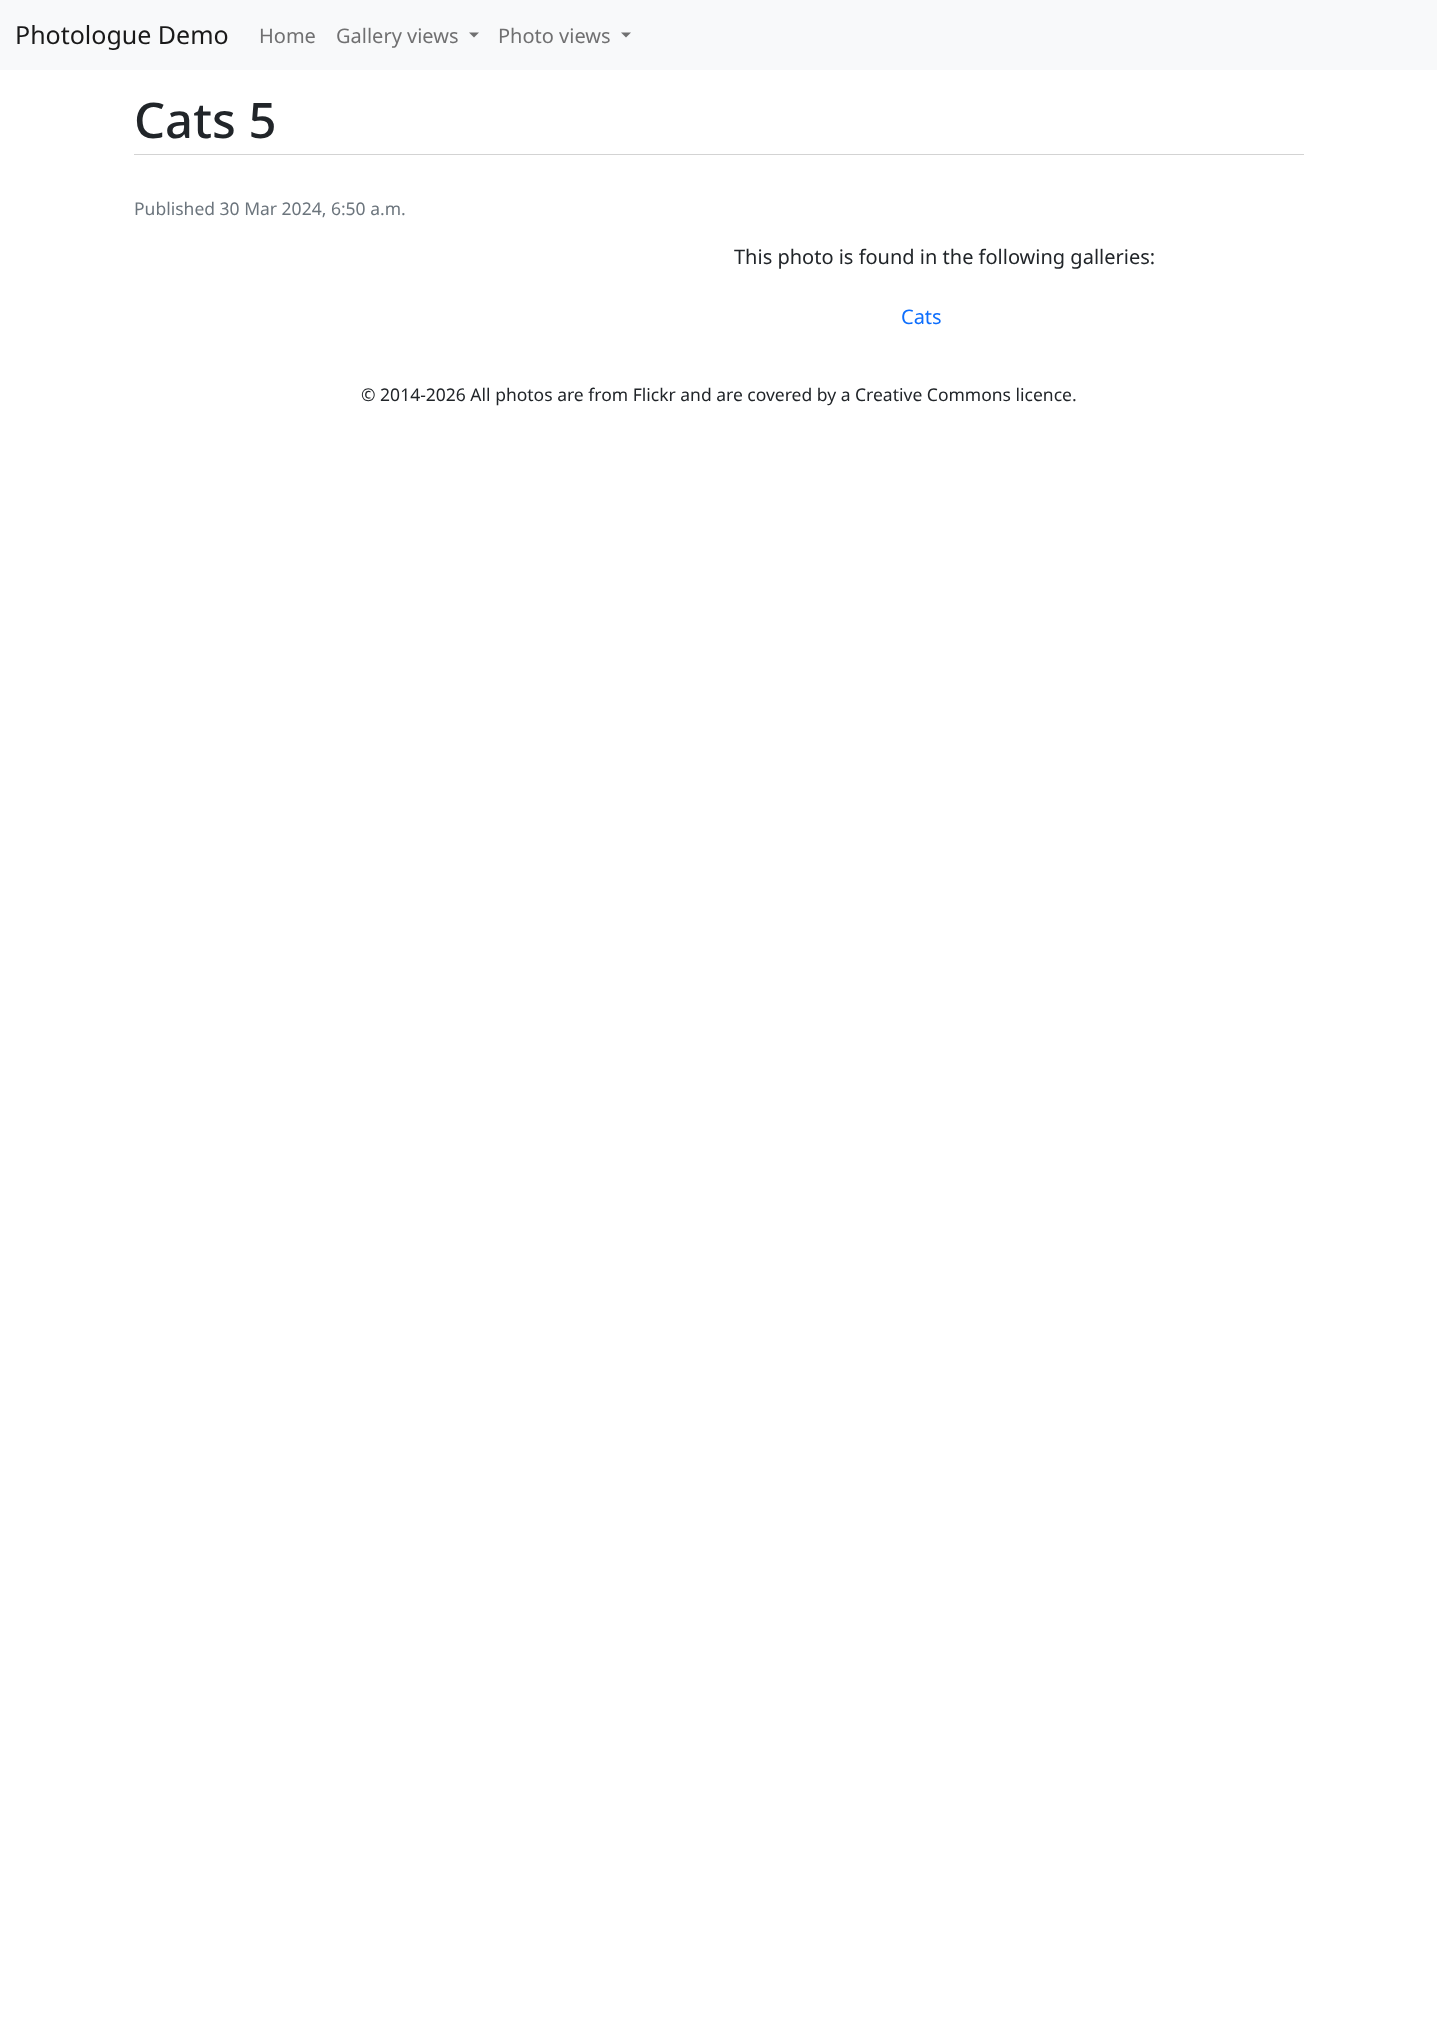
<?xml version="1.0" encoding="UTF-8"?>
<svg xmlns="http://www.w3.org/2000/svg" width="1437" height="2022">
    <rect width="100%" height="100%" fill="#FFFFFF"/>
    <rect x="0" y="0" width="1437" height="70" fill="#F8F9FA"/>
    <text x="15" y="44" font-family="Noto Sans" font-size="25" fill="#191919">Photologue Demo</text>
    <text x="259" y="43" font-family="Noto Sans" font-size="20" fill="#707071">Home</text>
    <text x="336" y="43" font-family="Noto Sans" font-size="20" fill="#707071">Gallery views</text>
    <path d="M 469 32.5 H 479 L 474 37.5 Z" fill="#707071"/>
    <text x="498" y="43" font-family="Noto Sans" font-size="20" fill="#707071">Photo views</text>
    <path d="M 621 32.5 H 631 L 626 37.5 Z" fill="#707071"/>
    <rect x="134" y="154" width="1170" height="1" fill="#D3D3D3"/>
    <text x="134" y="138" font-family="Noto Sans" font-size="49" font-weight="500" fill="#212529">Cats 5</text>
    <text x="134" y="215" font-family="Noto Sans" font-size="17.5" fill="#6C757D">Published 30 Mar 2024, 6:50 a.m.</text>
    <text x="734" y="264" font-family="Noto Sans" font-size="20" fill="#212529">This photo is found in the following galleries:</text>
    <text x="901" y="324" font-family="Noto Sans" font-size="20" fill="#0D6EFD">Cats</text>
    <text x="361" y="401" font-family="Noto Sans" font-size="17.5" fill="#212529">© 2014-2026 All photos are from Flickr and are covered by a Creative Commons licence.</text>
</svg>
